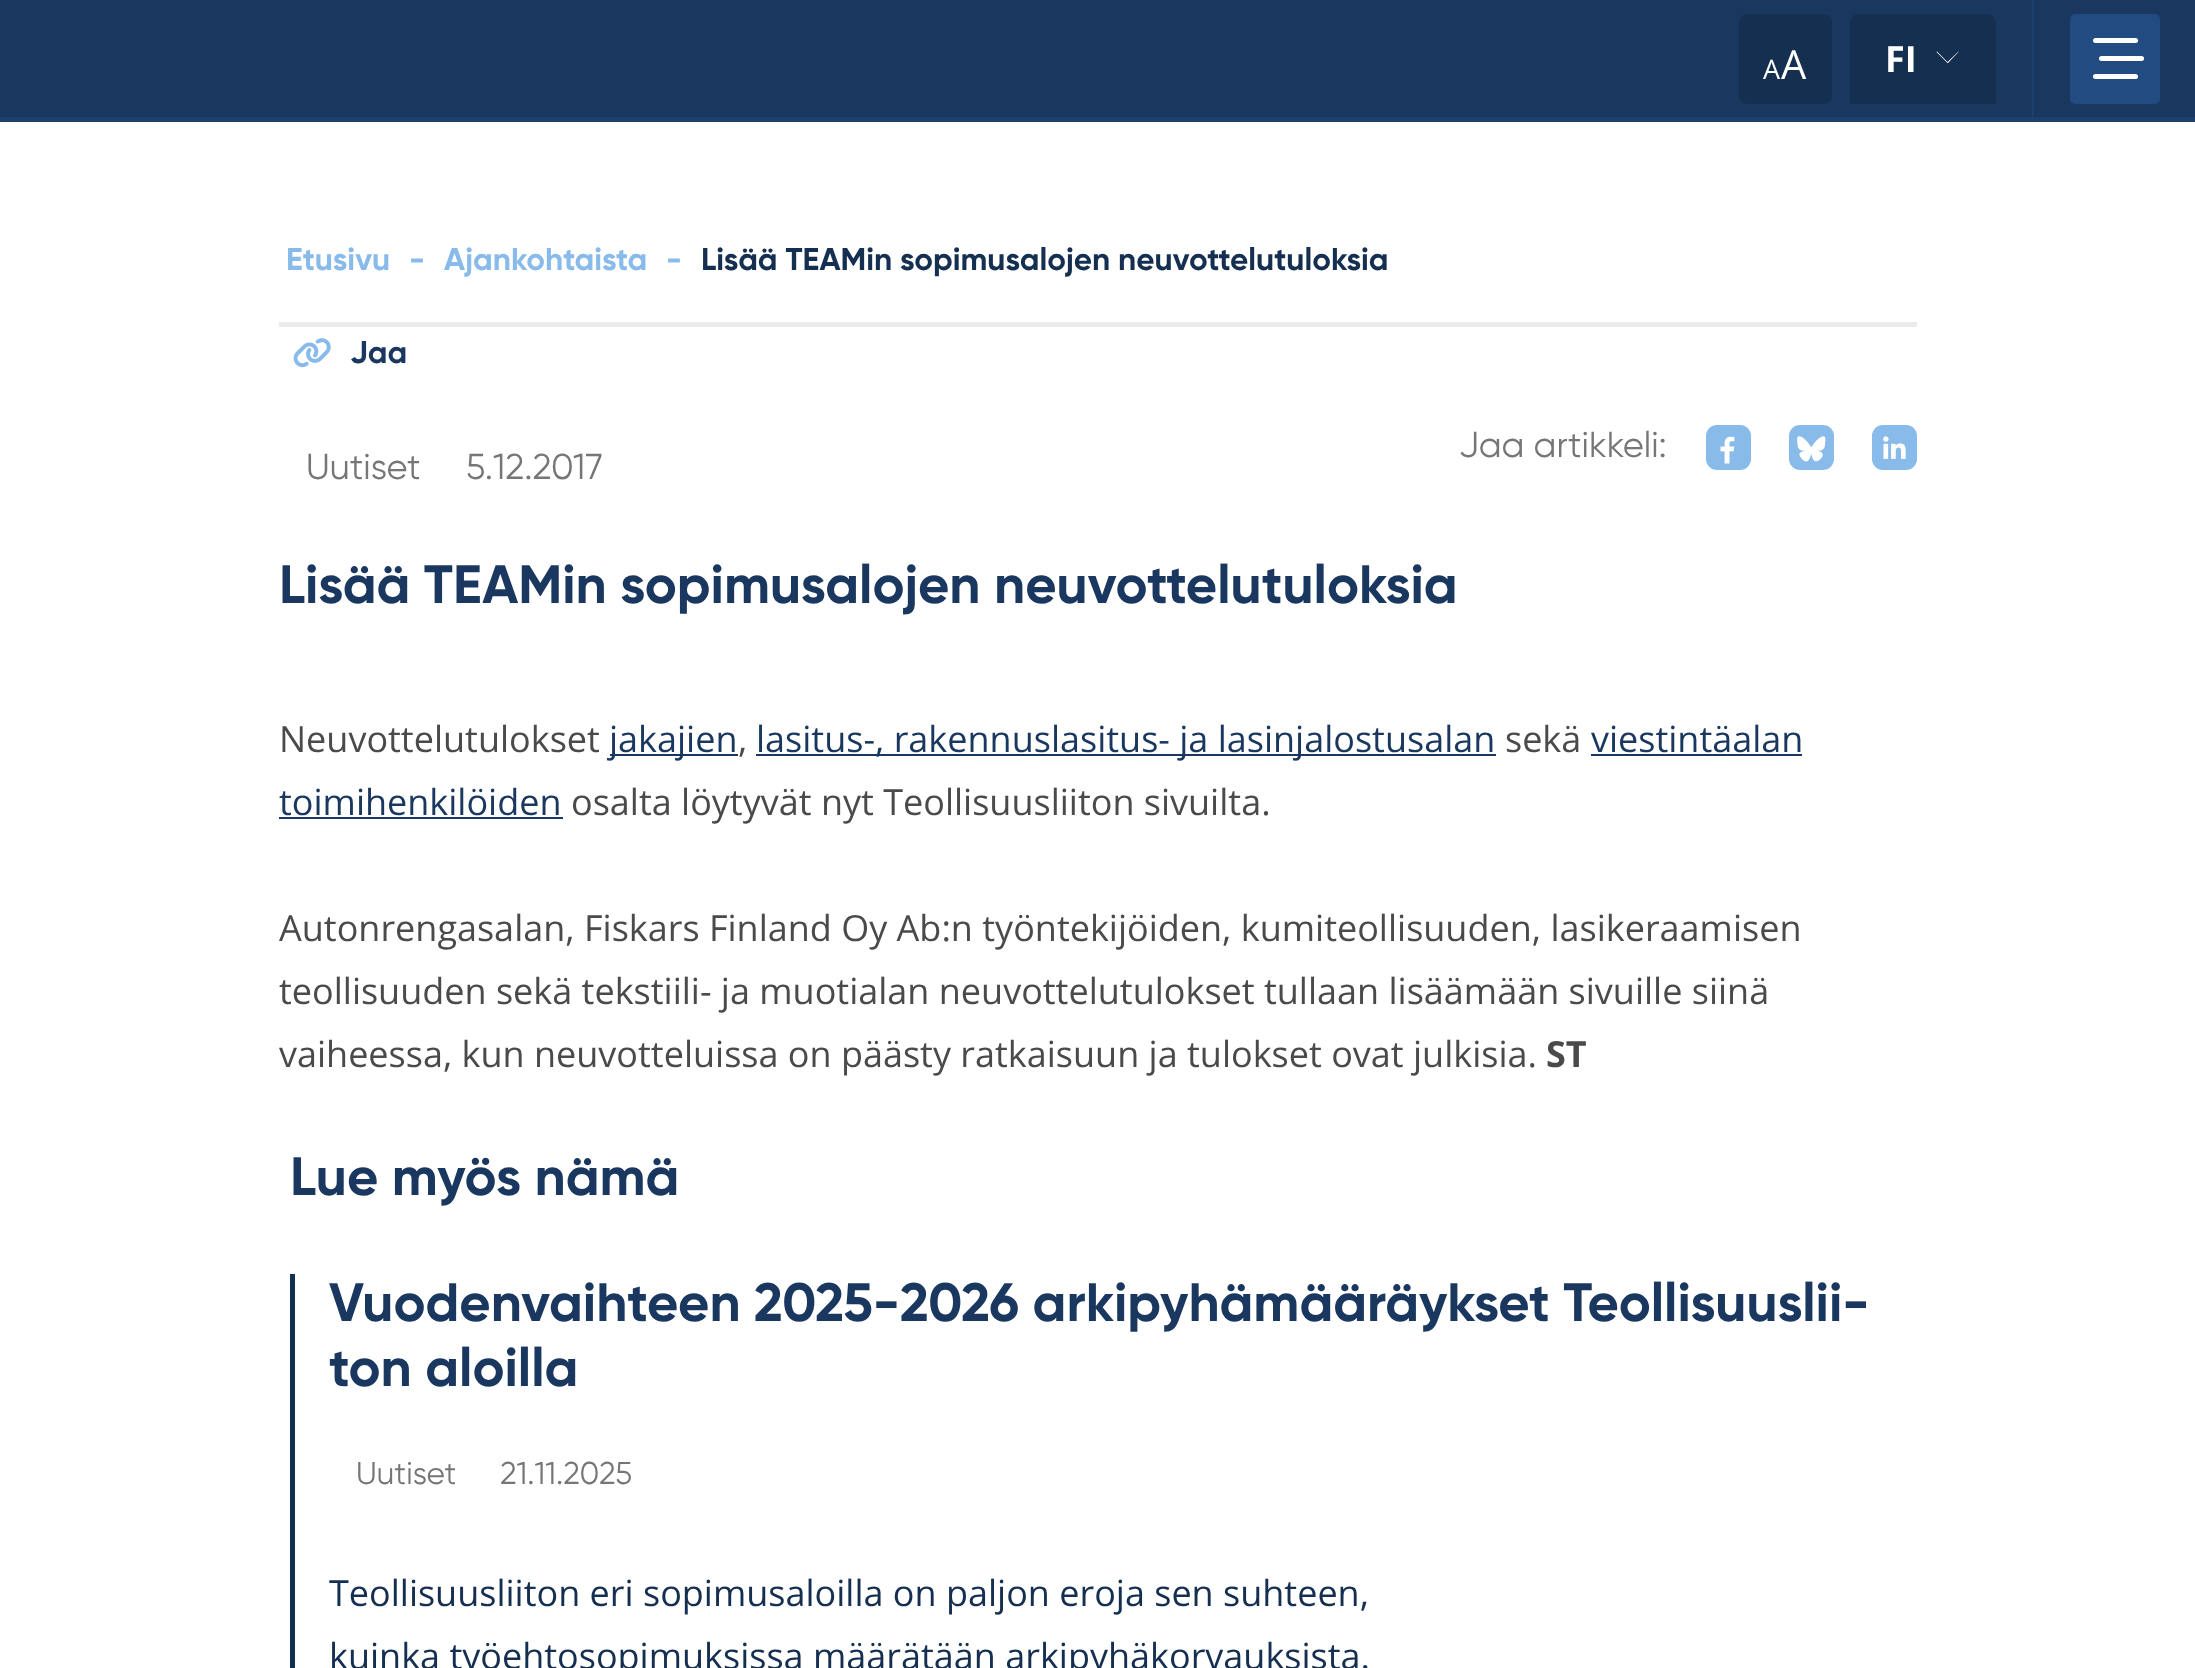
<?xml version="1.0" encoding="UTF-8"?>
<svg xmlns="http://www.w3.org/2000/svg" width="2195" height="1668">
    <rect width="100%" height="100%" fill="#FFFFFF"/>
    <rect x="0" y="0" width="2195" height="117" fill="#19375F"/>
    <rect x="0" y="117" width="2195" height="5" fill="#1D406F"/>
    <rect x="1739" y="14" width="93" height="90" rx="9" fill="#152F51"/>
    <text x="1763" y="79" font-family="Open Sans" font-size="27" fill="#FFFFFF">A</text>
    <text x="1781" y="79" font-family="Open Sans" font-size="40" fill="#FFFFFF">A</text>
    <path d="M 1859 14 H 1987 C 1992 14 1996 18 1996 23 V 104 H 1850 V 23 C 1850 18 1854 14 1859 14 Z" fill="#152F51"/>
    <text x="1885" y="72" font-family="Open Sans" font-size="36" font-weight="700" fill="#FFFFFF">FI</text>
    <path d="M 1947.5 63 H 1948 L 1958.5 52 V 51.5 L 1947.5 62 L 1937 51.5 L 1936.5 52 Z" fill="#FFFFFF"/>
    <rect x="2032" y="0" width="2" height="117" fill="#1D406F"/>
    <rect x="2070" y="14" width="90" height="90" rx="5" fill="#224B81"/>
    <rect x="2093" y="74" width="45" height="5" rx="2.5" fill="#FFFFFF"/>
    <rect x="2093" y="38" width="45" height="5" rx="2.5" fill="#FFFFFF"/>
    <rect x="2099" y="56" width="45" height="5" rx="2.5" fill="#FFFFFF"/>
    <text x="286" y="270" font-family="Gilroy" font-size="31.5" fill="#88BAEA">Etusivu</text>
    <text x="409" y="270" font-family="Gilroy" font-size="31.5" fill="#88BAEA">-</text>
    <text x="444" y="270" font-family="Gilroy" font-size="31.5" fill="#88BAEA">Ajankohtaista</text>
    <text x="666" y="270" font-family="Gilroy" font-size="31.5" fill="#88BAEA">-</text>
    <text x="701" y="270" font-family="Gilroy" font-size="31.5" fill="#152F51">Lisää TEAMin sopimusalojen neuvottelutuloksia</text>
    <rect x="279" y="322" width="1638" height="5" fill="#EBEBEB"/>
    <image x="293" y="338" width="38" height="30" href="img_01.png"/>
    <text x="350" y="363" font-family="Gilroy" font-size="31.5" fill="#19375F">Jaa</text>
    <text x="1459" y="457" font-family="'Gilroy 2'" font-size="36" fill="#767676">Jaa artikkeli:</text>
    <rect x="1706" y="425" width="45" height="45" rx="11" fill="#88BAEA"/>
    <image x="1720" y="436" width="15" height="28" href="img_02.png"/>
    <rect x="1789" y="425" width="45" height="45" rx="11" fill="#88BAEA"/>
    <image x="1797" y="436" width="29" height="26" href="img_03.png"/>
    <rect x="1872" y="425" width="45" height="45" rx="11" fill="#88BAEA"/>
    <image x="1883" y="436" width="23" height="23" href="img_04.png"/>
    <text x="306" y="479" font-family="'Gilroy 2'" font-size="36" fill="#767676">Uutiset</text>
    <text x="466" y="479" font-family="'Gilroy 2'" font-size="36" fill="#767676">5.12.2017</text>
    <text x="279" y="603" font-family="Gilroy" font-size="54" fill="#19375F">Lisää TEAMin sopimusalojen neuvottelutuloksia</text>
    <text x="279" y="752" font-family="Open Sans" font-size="36" fill="#4A4A4A">Neuvottelutulokset</text>
    <rect x="610" y="754" width="128" height="2" fill="#19375F"/>
    <text x="609" y="752" font-family="Open Sans" font-size="36" fill="#19375F">jakajien</text>
    <text x="738" y="752" font-family="Open Sans" font-size="36" fill="#4A4A4A">,</text>
    <rect x="756" y="754" width="740" height="2" fill="#19375F"/>
    <text x="756" y="752" font-family="Open Sans" font-size="36" fill="#19375F">lasitus-, rakennuslasitus- ja lasinjalostusalan</text>
    <text x="1505" y="752" font-family="Open Sans" font-size="36" fill="#4A4A4A">sekä</text>
    <text x="1591" y="752" font-family="Open Sans" font-size="36" fill="#19375F">viestintäalan</text>
    <rect x="1591" y="754" width="211" height="2" fill="#19375F"/>
    <text x="279" y="815" font-family="Open Sans" font-size="36" fill="#19375F">toimihenkilöiden</text>
    <rect x="279" y="817" width="284" height="2" fill="#19375F"/>
    <text x="571" y="815" font-family="Open Sans" font-size="36" fill="#4A4A4A">osalta löytyvät nyt Teollisuusliiton sivuilta.</text>
    <text font-family="Open Sans" font-size="36" fill="#4A4A4A">
        <tspan x="279" y="941">Autonrengasalan, Fiskars Finland Oy Ab:n työntekijöiden, kumiteollisuuden, lasikeraamisen</tspan>
        <tspan x="279" y="1004">teollisuuden sekä tekstiili- ja muotialan neuvottelutulokset tullaan lisäämään sivuille siinä</tspan>
        <tspan x="279" y="1067">vaiheessa, kun neuvotteluissa on päästy ratkaisuun ja tulokset ovat julkisia.</tspan>
    </text>
    <text x="1546" y="1067" font-family="Open Sans" font-size="36" font-weight="700" fill="#4A4A4A">ST</text>
    <text x="290" y="1195" font-family="Gilroy" font-size="54" fill="#19375F">Lue myös nämä</text>
    <rect x="290" y="1274" width="5" height="394" fill="#152F51"/>
    <text font-family="Gilroy" font-size="54" fill="#19375F">
        <tspan x="329" y="1321">Vuodenvaihteen 2025-2026 arkipyhämääräykset Teollisuuslii-</tspan>
        <tspan x="329" y="1386">ton aloilla</tspan>
    </text>
    <text x="356" y="1484" font-family="'Gilroy 2'" font-size="31.5" fill="#767676">Uutiset</text>
    <text x="500" y="1484" font-family="'Gilroy 2'" font-size="31.5" fill="#767676">21.11.2025</text>
    <text font-family="Open Sans" font-size="36" fill="#152F51">
        <tspan x="329" y="1606">Teollisuusliiton eri sopimusaloilla on paljon eroja sen suhteen,</tspan>
        <tspan x="329" y="1669">kuinka työehtosopimuksissa määrätään arkipyhäkorvauksista.</tspan>
    </text>
</svg>
